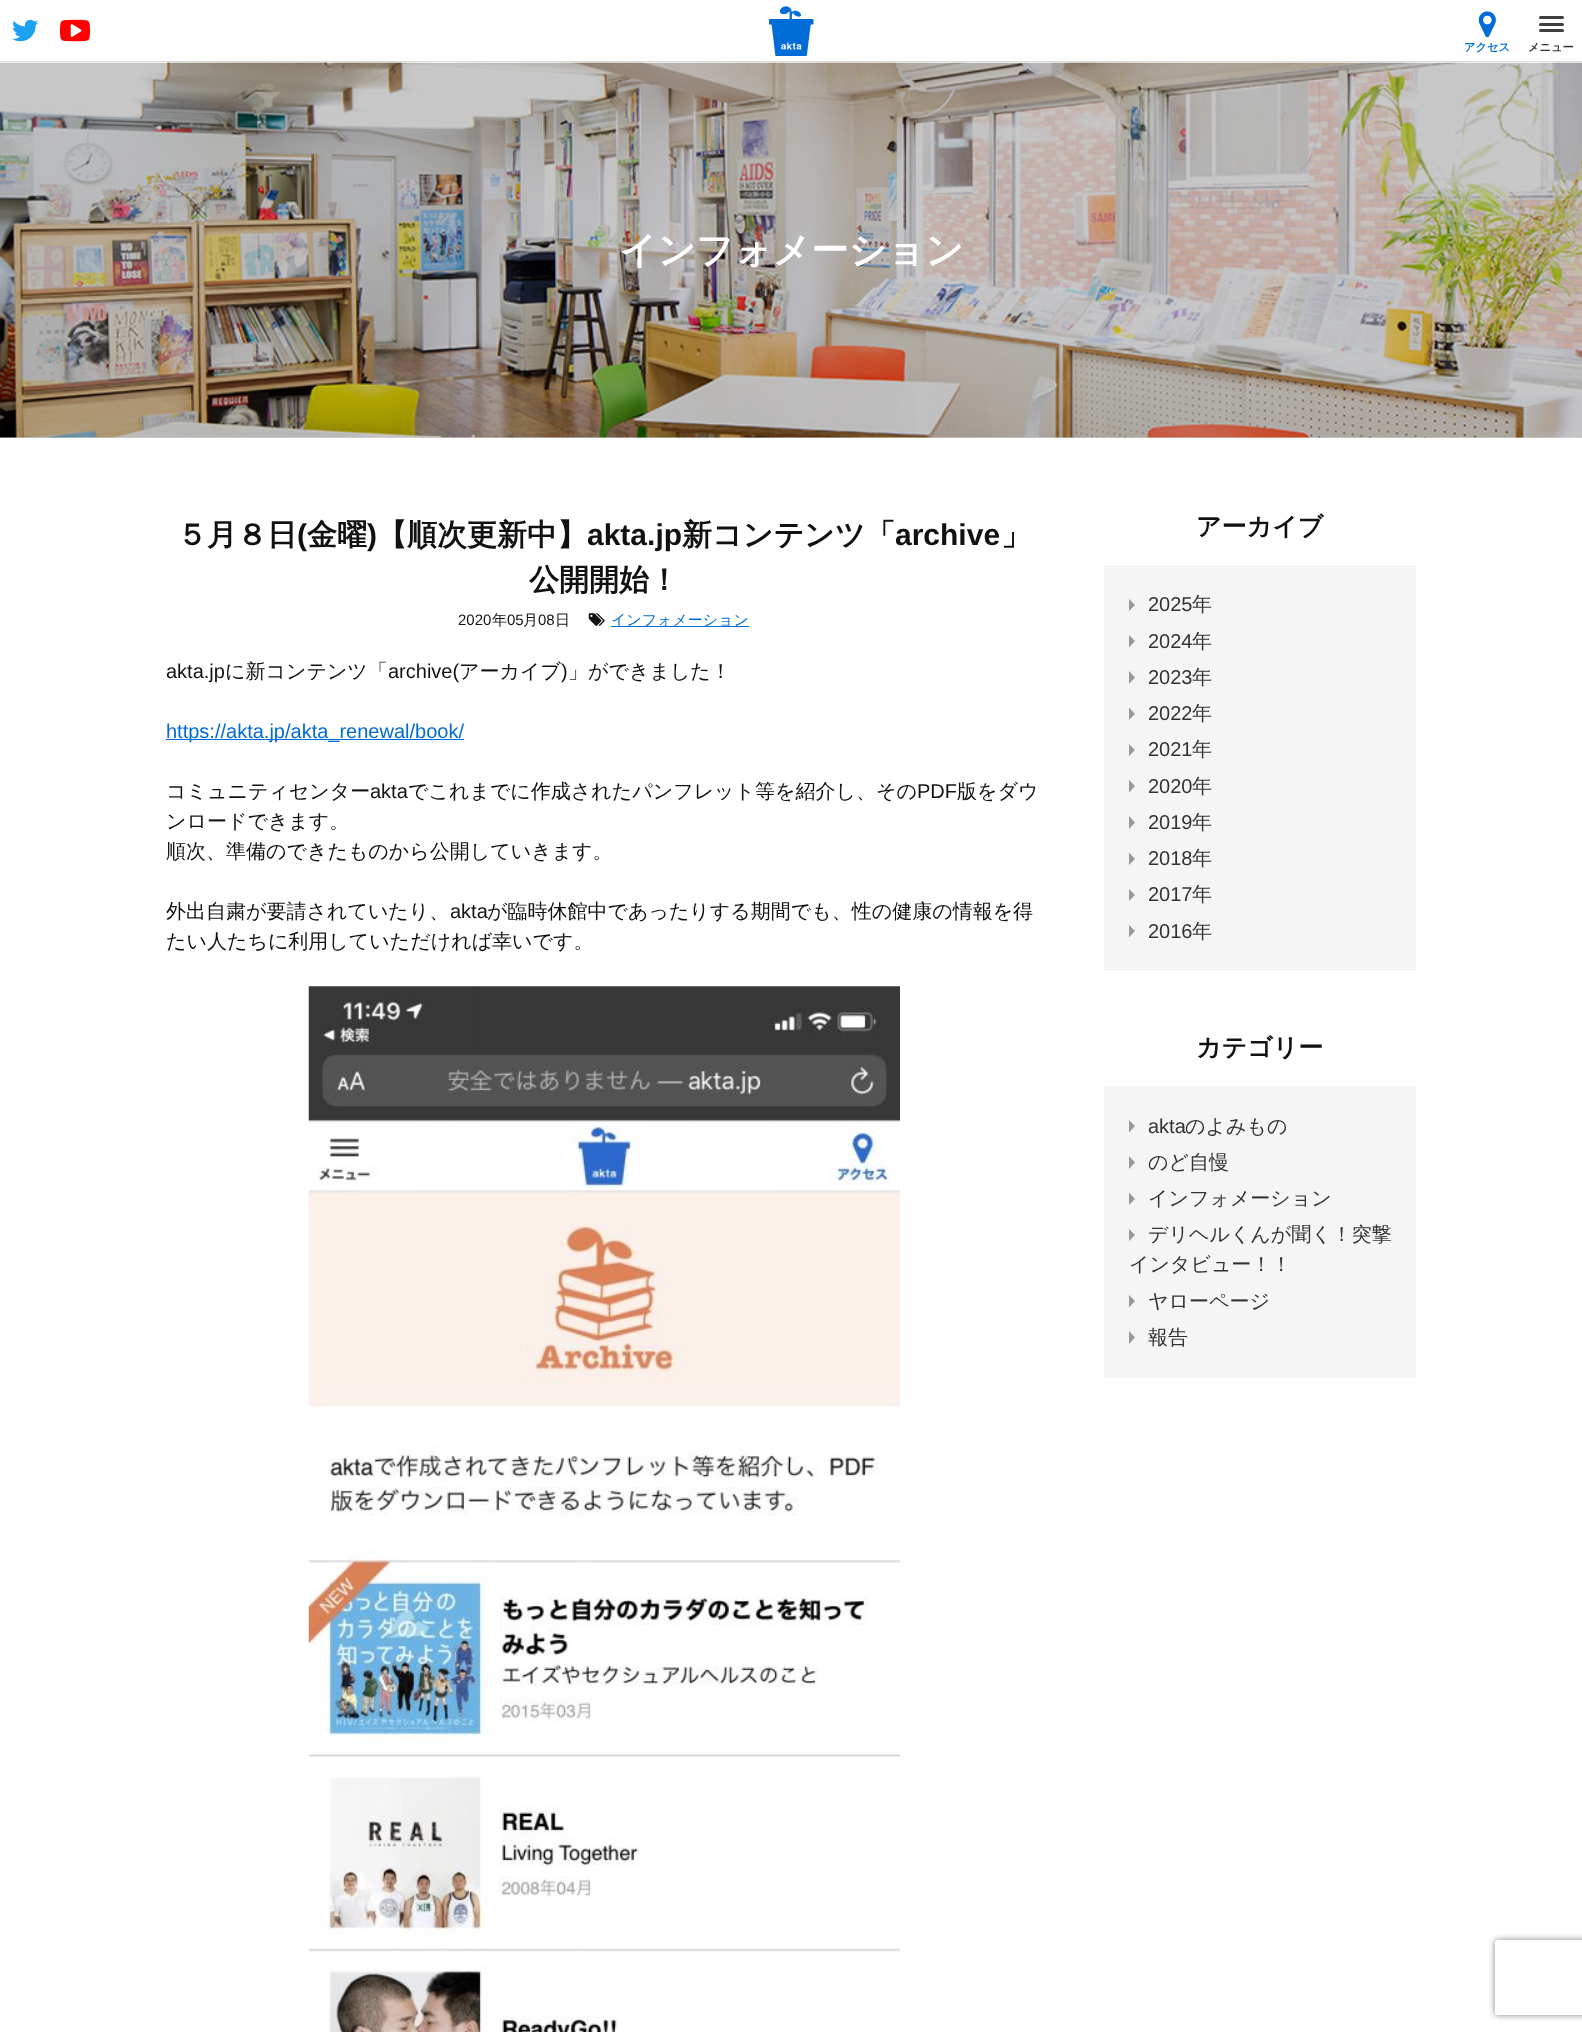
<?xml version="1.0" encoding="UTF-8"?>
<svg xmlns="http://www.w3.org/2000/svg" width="1582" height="2032">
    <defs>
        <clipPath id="clip1"><path d="M 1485 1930 H 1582 V 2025 H 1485 Z M 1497.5 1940 H 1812.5 C 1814 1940 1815 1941 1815 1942.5 V 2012.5 C 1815 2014 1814 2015 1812.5 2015 H 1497.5 C 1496 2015 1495 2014 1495 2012.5 V 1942.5 C 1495 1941 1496 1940 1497.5 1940 Z" clip-rule="evenodd"/></clipPath>
        <filter id="blur1" x="-50%" y="-200%" width="200%" height="500%"><feGaussianBlur stdDeviation="3"/></filter>
    </defs>
    <rect width="100%" height="100%" fill="#FFFFFF"/>
    <rect x="0" y="437" width="1582" height="1" fill="#D9D9D9"/>
    <rect x="0" y="61" width="1582" height="1" fill="#DDDDDD"/>
    <image x="12" y="19" width="27" height="23" href="img_01.png"/>
    <image x="60" y="19" width="30" height="23" href="img_02.png"/>
    <image x="769" y="6" width="45" height="50" href="img_03.png"/>
    <image x="1478" y="11" width="18" height="27" href="img_04.png"/>
    <text x="1464" y="51" font-family="WenQuanYi Zen Hei" font-size="11.25" font-weight="700" fill="#006CD8">アクセス</text>
    <rect x="1539" y="16" width="25" height="3" rx="1.5" fill="#3F3F3F"/>
    <rect x="1539" y="23" width="25" height="3" rx="1.5" fill="#3F3F3F"/>
    <rect x="1539" y="29" width="25" height="3" rx="1.5" fill="#3F3F3F"/>
    <text x="1528" y="51" font-family="WenQuanYi Zen Hei" font-size="11.25" font-weight="700" fill="#333333">メニュー</text>
    <image x="0" y="62" width="1582" height="376" href="img_05.png"/>
    <text x="619" y="263" font-family="WenQuanYi Zen Hei" font-size="37.5" font-weight="700" fill="#FFFFFF">インフォメーション</text>
    <text x="177" y="545" font-family="WenQuanYi Zen Hei" font-size="30" font-weight="700" fill="#111111">５月８日</text>
    <text x="297" y="545" font-family="Liberation Sans" font-size="30" font-weight="700" fill="#111111">(</text>
    <text x="307" y="545" font-family="WenQuanYi Zen Hei" font-size="30" font-weight="700" fill="#111111">金曜</text>
    <text x="367" y="545" font-family="Liberation Sans" font-size="30" font-weight="700" fill="#111111">)</text>
    <text x="377" y="545" font-family="WenQuanYi Zen Hei" font-size="30" font-weight="700" fill="#111111">【順次更新中】</text>
    <text x="587" y="545" font-family="Liberation Sans" font-size="30" font-weight="700" fill="#111111">akta.jp</text>
    <text x="682" y="545" font-family="WenQuanYi Zen Hei" font-size="30" font-weight="700" fill="#111111">新コンテンツ「</text>
    <text x="895" y="545" font-family="Liberation Sans" font-size="30" font-weight="700" fill="#111111">archive</text>
    <text x="1001" y="545" font-family="WenQuanYi Zen Hei" font-size="30" font-weight="700" fill="#111111">」</text>
    <text x="529" y="590" font-family="WenQuanYi Zen Hei" font-size="30" font-weight="700" fill="#111111">公開開始！</text>
    <text x="458" y="625" font-family="Liberation Sans" font-size="15" fill="#111111">2020</text>
    <text x="492" y="625" font-family="WenQuanYi Zen Hei" font-size="15" font-weight="500" fill="#111111">年</text>
    <text x="507" y="625" font-family="Liberation Sans" font-size="15" fill="#111111">05</text>
    <text x="523" y="625" font-family="WenQuanYi Zen Hei" font-size="15" font-weight="500" fill="#111111">月</text>
    <text x="538" y="625" font-family="Liberation Sans" font-size="15" fill="#111111">08</text>
    <text x="555" y="625" font-family="WenQuanYi Zen Hei" font-size="15" font-weight="500" fill="#111111">日</text>
    <image x="588" y="613" width="17" height="13" href="img_06.png"/>
    <rect x="611" y="626" width="138" height="1" fill="#006CD8"/>
    <text x="611" y="625" font-family="WenQuanYi Zen Hei" font-size="15" font-weight="500" fill="#006CD8">インフォメーション</text>
    <text x="166" y="678" font-family="Liberation Sans" font-size="20" fill="#111111">akta.jp</text>
    <text x="225" y="678" font-family="WenQuanYi Zen Hei" font-size="20" font-weight="500" fill="#111111">に新コンテンツ「</text>
    <text x="388" y="678" font-family="Liberation Sans" font-size="20" fill="#111111">archive(</text>
    <text x="459" y="678" font-family="WenQuanYi Zen Hei" font-size="20" font-weight="500" fill="#111111">アーカイブ</text>
    <text x="561" y="678" font-family="Liberation Sans" font-size="20" fill="#111111">)</text>
    <text x="568" y="678" font-family="WenQuanYi Zen Hei" font-size="20" font-weight="500" fill="#111111">」ができました！</text>
    <rect x="166" y="739" width="298" height="1" fill="#006CD8"/>
    <text x="166" y="738" font-family="Liberation Sans" font-size="20" fill="#006CD8">https://akta.jp/akta_renewal/book/</text>
    <text x="166" y="798" font-family="WenQuanYi Zen Hei" font-size="20" font-weight="500" fill="#111111">コミュニティセンター</text>
    <text x="370" y="798" font-family="Liberation Sans" font-size="20" fill="#111111">akta</text>
    <text x="408" y="798" font-family="WenQuanYi Zen Hei" font-size="20" font-weight="500" fill="#111111">でこれまでに作成されたパンフレット等を紹介し、その</text>
    <text x="917" y="798" font-family="Liberation Sans" font-size="20" fill="#111111">PDF</text>
    <text x="957" y="798" font-family="WenQuanYi Zen Hei" font-size="20" font-weight="500" fill="#111111">版をダウ</text>
    <text font-family="WenQuanYi Zen Hei" font-size="20" font-weight="500" fill="#111111">
        <tspan x="166" y="828">ンロードできます。</tspan>
        <tspan x="166" y="858">順次、準備のできたものから公開していきます。</tspan>
    </text>
    <text x="166" y="918" font-family="WenQuanYi Zen Hei" font-size="20" font-weight="500" fill="#111111">外出自粛が要請されていたり、</text>
    <text x="450" y="918" font-family="Liberation Sans" font-size="20" fill="#111111">akta</text>
    <text x="487" y="918" font-family="WenQuanYi Zen Hei" font-size="20" font-weight="500" fill="#111111">が臨時休館中であったりする期間でも、性の健康の情報を得</text>
    <text x="166" y="948" font-family="WenQuanYi Zen Hei" font-size="20" font-weight="500" fill="#111111">たい人たちに利用していただければ幸いです。</text>
    <image x="308" y="986" width="592" height="1046" href="img_07.png"/>
    <text x="1196" y="535" font-family="WenQuanYi Zen Hei" font-size="25" font-weight="700" fill="#111111">アーカイブ</text>
    <rect x="1104" y="565" width="312" height="406" fill="#F5F5F5"/>
    <path d="M 1129 611 V 599 L 1135 605 Z" fill="#999999"/>
    <text x="1148" y="611" font-family="Liberation Sans" font-size="20" fill="#333333">2025</text>
    <text x="1192" y="611" font-family="WenQuanYi Zen Hei" font-size="20" font-weight="500" fill="#333333">年</text>
    <path d="M 1129 647.5 V 635 L 1135 641 Z" fill="#999999"/>
    <text x="1148" y="648" font-family="Liberation Sans" font-size="20" fill="#333333">2024</text>
    <text x="1192" y="648" font-family="WenQuanYi Zen Hei" font-size="20" font-weight="500" fill="#333333">年</text>
    <path d="M 1129 684 V 671 L 1135 677.5 Z" fill="#999999"/>
    <text x="1148" y="684" font-family="Liberation Sans" font-size="20" fill="#333333">2023</text>
    <text x="1192" y="684" font-family="WenQuanYi Zen Hei" font-size="20" font-weight="500" fill="#333333">年</text>
    <path d="M 1129 720 V 707.5 L 1135 714 Z" fill="#999999"/>
    <text x="1148" y="720" font-family="Liberation Sans" font-size="20" fill="#333333">2022</text>
    <text x="1192" y="720" font-family="WenQuanYi Zen Hei" font-size="20" font-weight="500" fill="#333333">年</text>
    <path d="M 1129 756 V 744 L 1135 750 Z" fill="#999999"/>
    <text x="1148" y="756" font-family="Liberation Sans" font-size="20" fill="#333333">2021</text>
    <text x="1192" y="756" font-family="WenQuanYi Zen Hei" font-size="20" font-weight="500" fill="#333333">年</text>
    <path d="M 1129 792.5 V 780 L 1135 786 Z" fill="#999999"/>
    <text x="1148" y="793" font-family="Liberation Sans" font-size="20" fill="#333333">2020</text>
    <text x="1192" y="793" font-family="WenQuanYi Zen Hei" font-size="20" font-weight="500" fill="#333333">年</text>
    <path d="M 1129 829 V 816 L 1135 822.5 Z" fill="#999999"/>
    <text x="1148" y="829" font-family="Liberation Sans" font-size="20" fill="#333333">2019</text>
    <text x="1192" y="829" font-family="WenQuanYi Zen Hei" font-size="20" font-weight="500" fill="#333333">年</text>
    <path d="M 1129 865 V 852.5 L 1135 859 Z" fill="#999999"/>
    <text x="1148" y="865" font-family="Liberation Sans" font-size="20" fill="#333333">2018</text>
    <text x="1192" y="865" font-family="WenQuanYi Zen Hei" font-size="20" font-weight="500" fill="#333333">年</text>
    <path d="M 1129 901 V 889 L 1135 895 Z" fill="#999999"/>
    <text x="1148" y="901" font-family="Liberation Sans" font-size="20" fill="#333333">2017</text>
    <text x="1192" y="901" font-family="WenQuanYi Zen Hei" font-size="20" font-weight="500" fill="#333333">年</text>
    <path d="M 1129 937.5 V 925 L 1135 931 Z" fill="#999999"/>
    <text x="1148" y="938" font-family="Liberation Sans" font-size="20" fill="#333333">2016</text>
    <text x="1192" y="938" font-family="WenQuanYi Zen Hei" font-size="20" font-weight="500" fill="#333333">年</text>
    <text x="1196" y="1056" font-family="WenQuanYi Zen Hei" font-size="25" font-weight="700" fill="#111111">カテゴリー</text>
    <rect x="1104" y="1086" width="312" height="292" fill="#F5F5F5"/>
    <path d="M 1129 1132.5 V 1120 L 1135 1126 Z" fill="#999999"/>
    <text x="1148" y="1133" font-family="Liberation Sans" font-size="20" fill="#333333">akta</text>
    <text x="1185" y="1133" font-family="WenQuanYi Zen Hei" font-size="20" font-weight="500" fill="#333333">のよみもの</text>
    <path d="M 1129 1169 V 1156 L 1135 1162.5 Z" fill="#999999"/>
    <text x="1148" y="1169" font-family="WenQuanYi Zen Hei" font-size="20" font-weight="500" fill="#333333">のど自慢</text>
    <path d="M 1129 1205 V 1192.5 L 1135 1199 Z" fill="#999999"/>
    <text x="1148" y="1205" font-family="WenQuanYi Zen Hei" font-size="20" font-weight="500" fill="#333333">インフォメーション</text>
    <path d="M 1129 1241 V 1229 L 1135 1235 Z" fill="#999999"/>
    <text x="1148" y="1241" font-family="WenQuanYi Zen Hei" font-size="20" font-weight="500" fill="#333333">デリヘルくんが聞く！突撃</text>
    <text x="1129" y="1271" font-family="WenQuanYi Zen Hei" font-size="20" font-weight="500" fill="#333333">インタビュー！！</text>
    <path d="M 1129 1307.5 V 1295 L 1135 1301 Z" fill="#999999"/>
    <text x="1148" y="1308" font-family="WenQuanYi Zen Hei" font-size="20" font-weight="500" fill="#333333">ヤローページ</text>
    <path d="M 1129 1344 V 1331 L 1135 1337.5 Z" fill="#999999"/>
    <text x="1148" y="1344" font-family="WenQuanYi Zen Hei" font-size="20" font-weight="500" fill="#333333">報告</text>
    <g clip-path="url(#clip1)">
        <rect x="1495" y="1940" width="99" height="75" rx="2.5" fill="#808080" filter="url(#blur1)"/>
    </g>
</svg>
